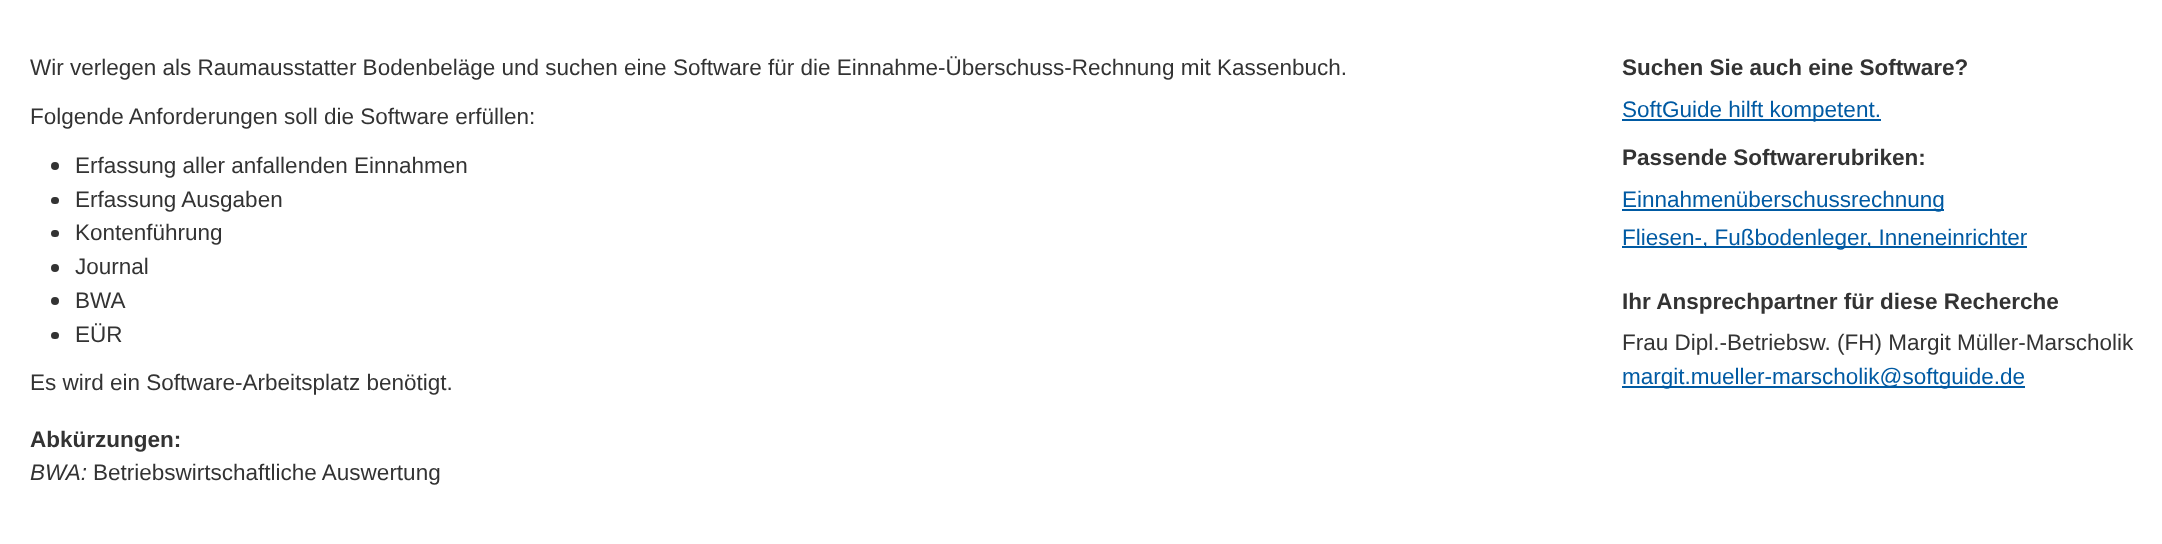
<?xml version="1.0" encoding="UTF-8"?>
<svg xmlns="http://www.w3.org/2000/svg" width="2162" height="544">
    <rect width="100%" height="100%" fill="#FFFFFF"/>
    <text x="30" y="75" font-family="Liberation Sans" font-size="22.5" fill="#333333">Wir verlegen als Raumausstatter Bodenbeläge und suchen eine Software für die Einnahme-Überschuss-Rechnung mit Kassenbuch.</text>
    <text x="30" y="124" font-family="Liberation Sans" font-size="22.5" fill="#333333">Folgende Anforderungen soll die Software erfüllen:</text>
    <circle cx="55" cy="166" r="4" fill="#333333"/>
    <text x="75" y="173" font-family="Liberation Sans" font-size="22.5" fill="#333333">Erfassung aller anfallenden Einnahmen</text>
    <rect x="51" y="197" width="8" height="7" rx="3.5" fill="#333333"/>
    <text x="75" y="207" font-family="Liberation Sans" font-size="22.5" fill="#333333">Erfassung Ausgaben</text>
    <rect x="51" y="230" width="8" height="7" rx="3.5" fill="#333333"/>
    <text x="75" y="240" font-family="Liberation Sans" font-size="22.5" fill="#333333">Kontenführung</text>
    <circle cx="55" cy="268" r="4" fill="#333333"/>
    <text x="75" y="274" font-family="Liberation Sans" font-size="22.5" fill="#333333">Journal</text>
    <circle cx="55" cy="301" r="4" fill="#333333"/>
    <text x="75" y="308" font-family="Liberation Sans" font-size="22.5" fill="#333333">BWA</text>
    <rect x="51" y="332" width="8" height="7" rx="3.5" fill="#333333"/>
    <text x="75" y="342" font-family="Liberation Sans" font-size="22.5" fill="#333333">EÜR</text>
    <text x="30" y="390" font-family="Liberation Sans" font-size="22.5" fill="#333333">Es wird ein Software-Arbeitsplatz benötigt.</text>
    <text x="30" y="447" font-family="Liberation Sans" font-size="22.5" font-weight="700" fill="#333333">Abkürzungen:</text>
    <text x="30" y="480" font-family="Liberation Sans" font-size="22.5" font-style="italic" fill="#333333">BWA:</text>
    <text x="93" y="480" font-family="Liberation Sans" font-size="22.5" fill="#333333">Betriebswirtschaftliche Auswertung</text>
    <text x="1622" y="75" font-family="Liberation Sans" font-size="22.5" font-weight="700" fill="#333333">Suchen Sie auch eine Software?</text>
    <rect x="1622" y="119" width="259" height="2" fill="#005AA3"/>
    <text x="1622" y="117" font-family="Liberation Sans" font-size="22.5" fill="#005AA3">SoftGuide hilft kompetent.</text>
    <text x="1622" y="165" font-family="Liberation Sans" font-size="22.5" font-weight="700" fill="#333333">Passende Softwarerubriken:</text>
    <rect x="1622" y="209" width="322" height="2" fill="#005AA3"/>
    <text x="1622" y="207" font-family="Liberation Sans" font-size="22.5" fill="#005AA3">Einnahmenüberschussrechnung</text>
    <rect x="1622" y="246" width="405" height="2" fill="#005AA3"/>
    <text x="1622" y="245" font-family="Liberation Sans" font-size="22.5" fill="#005AA3">Fliesen-, Fußbodenleger, Inneneinrichter</text>
    <text x="1622" y="309" font-family="Liberation Sans" font-size="22.5" font-weight="700" fill="#333333">Ihr Ansprechpartner für diese Recherche</text>
    <text x="1622" y="350" font-family="Liberation Sans" font-size="22.5" fill="#333333">Frau Dipl.-Betriebsw. (FH) Margit Müller-Marscholik</text>
    <rect x="1622" y="386" width="403" height="2" fill="#005AA3"/>
    <text x="1622" y="384" font-family="Liberation Sans" font-size="22.5" fill="#005AA3">margit.mueller-marscholik@softguide.de</text>
</svg>
